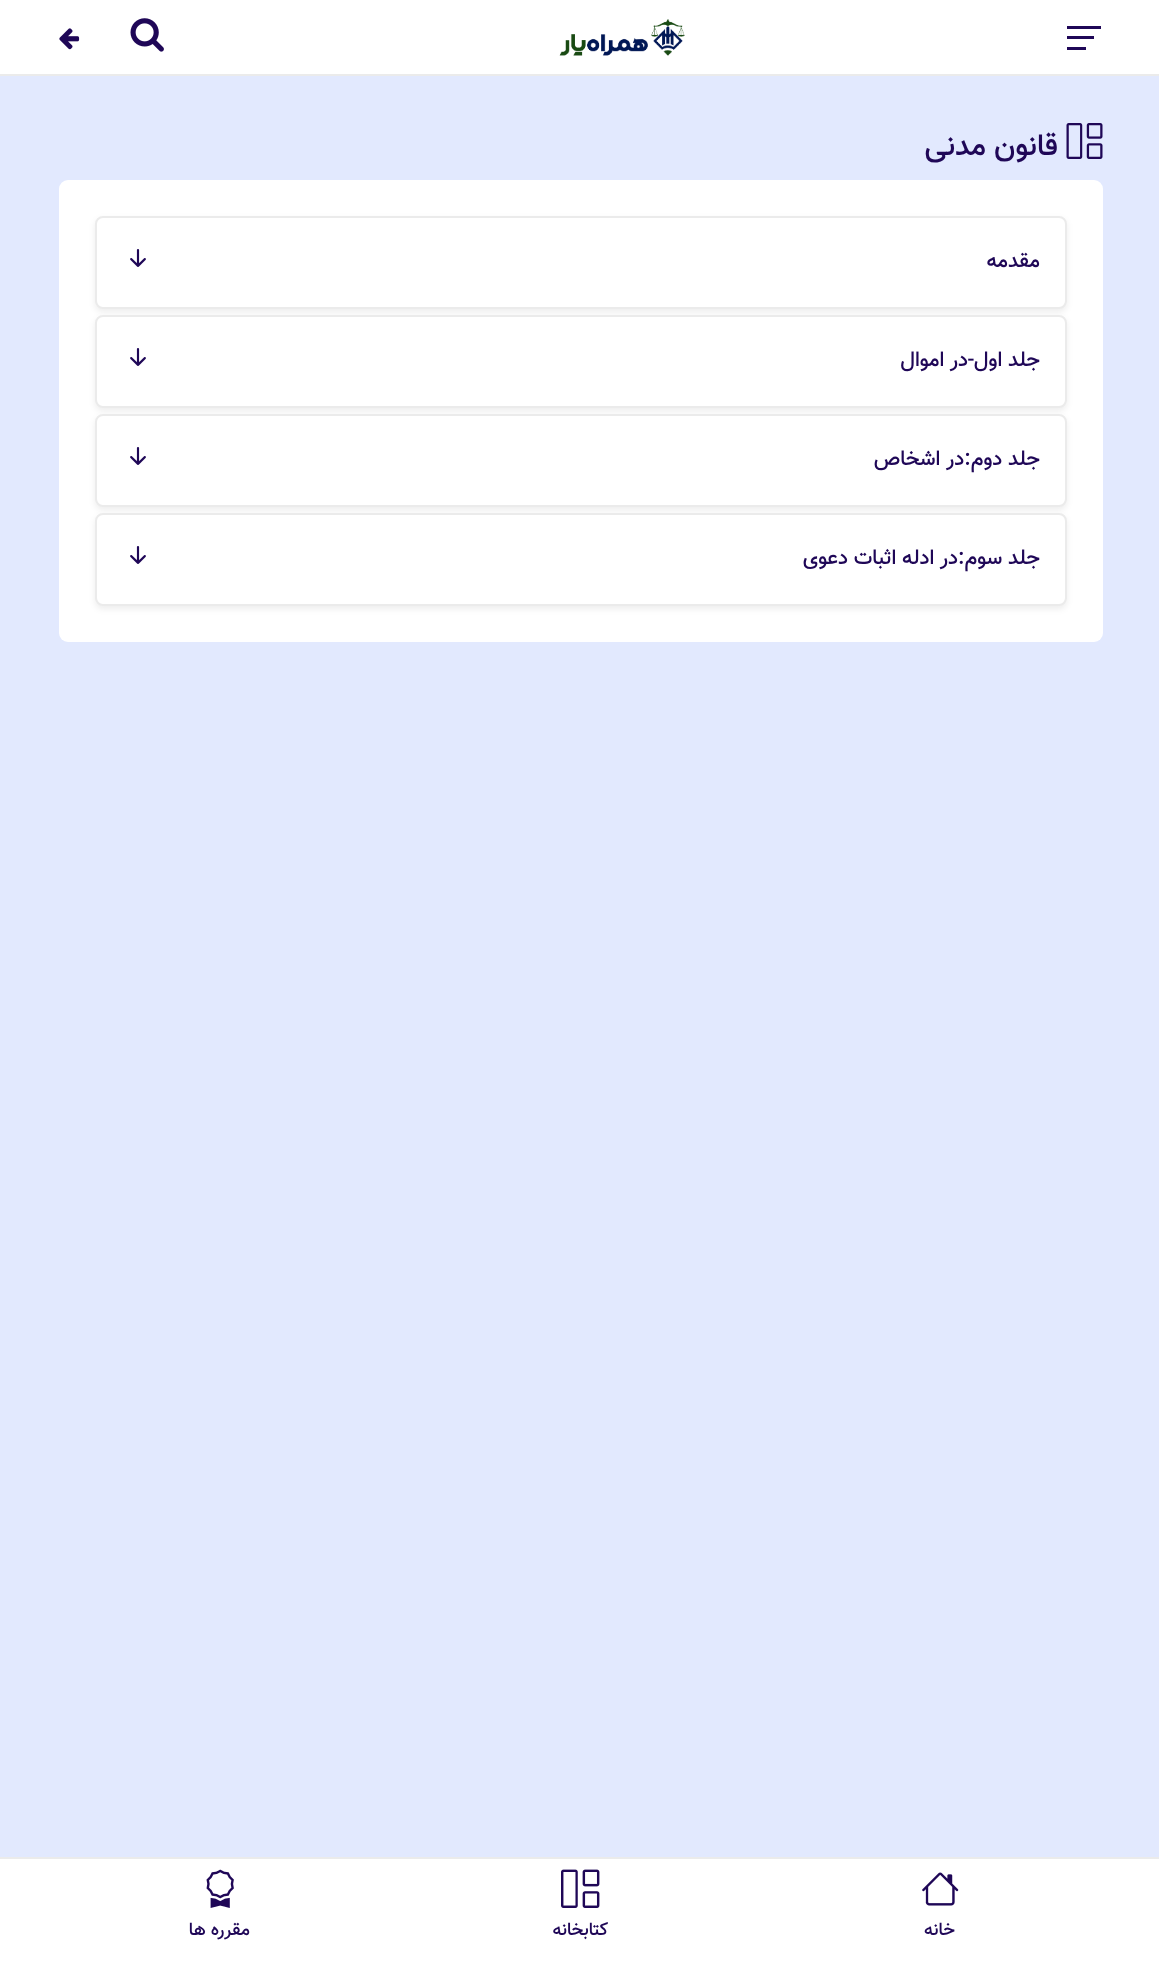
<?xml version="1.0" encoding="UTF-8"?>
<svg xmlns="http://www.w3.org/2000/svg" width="1159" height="1969">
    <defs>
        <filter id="blur1" x="-50%" y="-200%" width="200%" height="500%"><feGaussianBlur stdDeviation="3"/></filter>
    </defs>
    <rect width="100%" height="100%" fill="#E2E9FE"/>
    <rect x="0" y="0" width="1159" height="74" fill="#FFFFFF"/>
    <rect x="0" y="74" width="1159" height="2" fill="#EBEBEB"/>
    <rect x="1067" y="26" width="34" height="3" fill="#1F0757"/>
    <rect x="1067" y="36" width="27" height="3" fill="#1F0757"/>
    <rect x="1067" y="47" width="19" height="3" fill="#1F0757"/>
    <image x="559" y="19" width="126" height="37" href="img_01.png"/>
    <image x="130" y="18" width="34" height="34" href="img_02.png"/>
    <image x="59" y="28" width="21" height="22" href="img_03.png"/>
    <image x="1066" y="123" width="37" height="36" href="img_04.png"/>
    <text x="1058" y="155" font-family="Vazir" font-size="30" font-weight="500" direction="rtl" fill="#1F0757">قانون مدنی</text>
    <rect x="59" y="180" width="1044" height="462" rx="9" fill="#FFFFFF"/>
    <rect x="95" y="219" width="972" height="93" rx="8" fill="#000000" fill-opacity="0.07" filter="url(#blur1)"/>
    <rect x="96" y="217" width="970" height="91" rx="7" fill="#FFFFFF" stroke="#EBEBEB" stroke-width="2"/>
    <text x="1040" y="267" font-family="Vazir" font-size="21" font-weight="500" direction="rtl" fill="#1F0757">مقدمه</text>
    <image x="130" y="249" width="16" height="18" href="img_05.png"/>
    <rect x="95" y="318" width="972" height="93" rx="8" fill="#000000" fill-opacity="0.07" filter="url(#blur1)"/>
    <rect x="96" y="316" width="970" height="91" rx="7" fill="#FFFFFF" stroke="#EBEBEB" stroke-width="2"/>
    <text x="1040" y="366" font-family="Vazir" font-size="21" font-weight="500" direction="rtl" fill="#1F0757">جلد اول-در اموال</text>
    <image x="130" y="348" width="16" height="18" href="img_05.png"/>
    <rect x="95" y="417" width="972" height="93" rx="8" fill="#000000" fill-opacity="0.07" filter="url(#blur1)"/>
    <rect x="96" y="415" width="970" height="91" rx="7" fill="#FFFFFF" stroke="#EBEBEB" stroke-width="2"/>
    <text x="1040" y="465" font-family="Vazir" font-size="21" font-weight="500" direction="rtl" fill="#1F0757">جلد دوم:در اشخاص</text>
    <image x="130" y="447" width="16" height="18" href="img_05.png"/>
    <rect x="95" y="516" width="972" height="93" rx="8" fill="#000000" fill-opacity="0.07" filter="url(#blur1)"/>
    <rect x="96" y="514" width="970" height="91" rx="7" fill="#FFFFFF" stroke="#EBEBEB" stroke-width="2"/>
    <text x="1040" y="564" font-family="Vazir" font-size="21" font-weight="500" direction="rtl" fill="#1F0757">جلد سوم:در ادله اثبات دعوی</text>
    <image x="130" y="546" width="16" height="18" href="img_05.png"/>
    <rect x="0" y="1859" width="1159" height="110" fill="#FFFFFF"/>
    <rect x="0" y="1857" width="1159" height="2" fill="#EBEBEB"/>
    <image x="922" y="1872" width="37" height="34" href="img_06.png"/>
    <text x="955" y="1935" font-family="Vazir" font-size="18" font-weight="500" direction="rtl" fill="#1F0757">خانه</text>
    <image x="561" y="1869" width="39" height="39" href="img_07.png"/>
    <text x="608" y="1935" font-family="Vazir" font-size="18" font-weight="500" direction="rtl" fill="#1F0757">کتابخانه</text>
    <image x="206" y="1869" width="28" height="39" href="img_08.png"/>
    <text x="250" y="1935" font-family="Vazir" font-size="18" font-weight="500" direction="rtl" fill="#1F0757">مقرره ها</text>
</svg>
